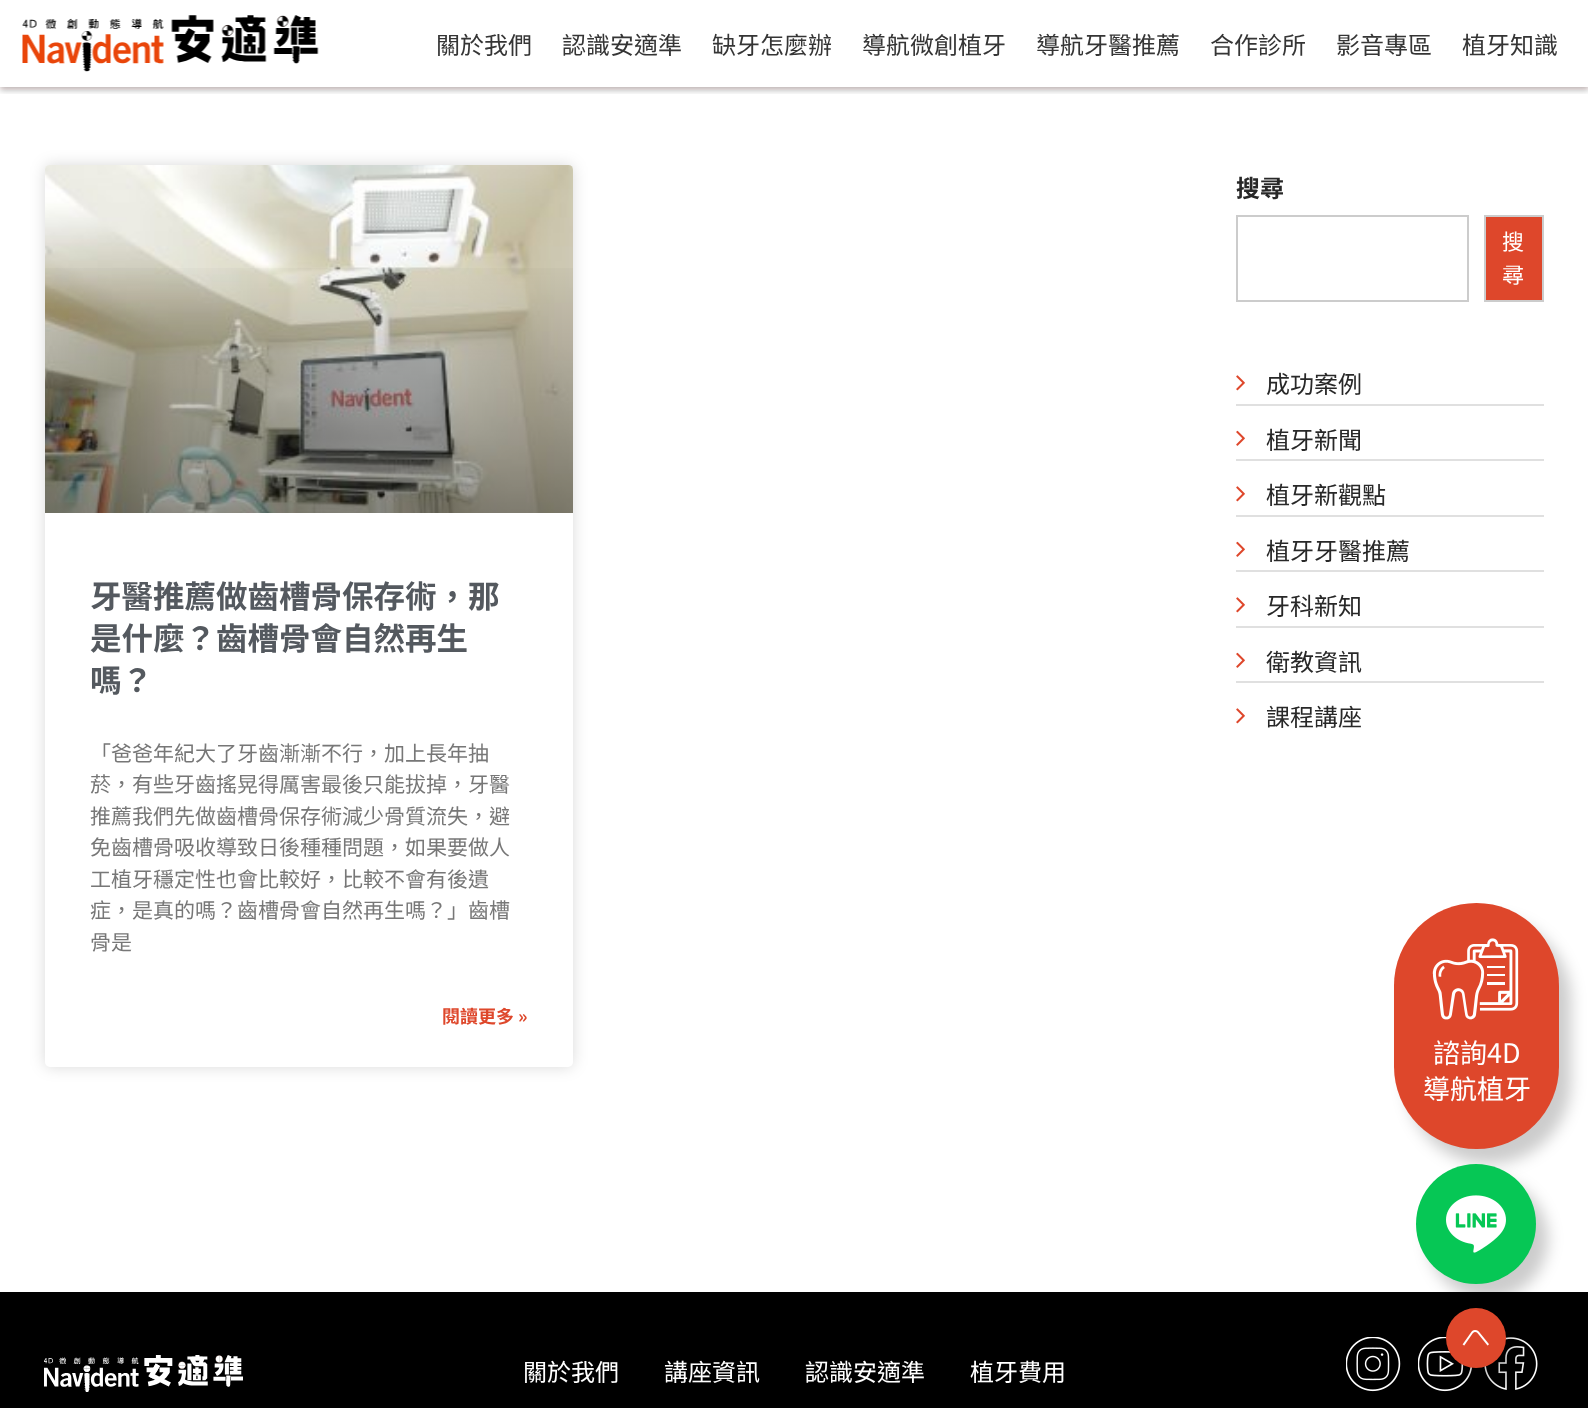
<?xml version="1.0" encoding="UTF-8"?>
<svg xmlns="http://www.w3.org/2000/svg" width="1588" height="1408">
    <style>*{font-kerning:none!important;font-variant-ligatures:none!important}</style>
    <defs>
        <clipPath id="clip1"><rect x="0" y="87" width="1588" height="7"/></clipPath>
        <filter id="blur1" x="-50%" y="-200%" width="200%" height="500%"><feGaussianBlur stdDeviation="3"/></filter>
        <filter id="blur2" x="-50%" y="-200%" width="200%" height="500%"><feGaussianBlur stdDeviation="7.5"/></filter>
        <linearGradient id="g1" gradientUnits="userSpaceOnUse" x1="309" y1="513" x2="309" y2="165"><stop offset="0" stop-color="#000000" stop-opacity="0.35"/><stop offset="0.75" stop-color="#000000" stop-opacity="0"/></linearGradient>
    </defs>
    <rect width="100%" height="100%" fill="#FFFFFF"/>
    <image x="22" y="15" width="297" height="57" href="img_01.png"/>
    <g clip-path="url(#clip1)">
        <rect x="0" y="3" width="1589" height="87" fill="#260A0A" fill-opacity="0.3" filter="url(#blur1)"/>
    </g>
    <text x="436" y="54" font-family="Noto Sans TC" font-size="24" font-weight="100" fill="#353535">關於我們</text>
    <text x="562" y="54" font-family="Noto Sans TC" font-size="24" font-weight="100" fill="#353535">認識安適準</text>
    <text x="712" y="54" font-family="Noto Sans TC" font-size="24" font-weight="100" fill="#353535">缺牙怎麼辦</text>
    <text x="862" y="54" font-family="Noto Sans TC" font-size="24" font-weight="100" fill="#353535">導航微創植牙</text>
    <text x="1036" y="54" font-family="Noto Sans TC" font-size="24" font-weight="100" fill="#353535">導航牙醫推薦</text>
    <text x="1210" y="54" font-family="Noto Sans TC" font-size="24" font-weight="100" fill="#353535">合作診所</text>
    <text x="1336" y="54" font-family="Noto Sans TC" font-size="24" font-weight="100" fill="#353535">影音專區</text>
    <text x="1462" y="54" font-family="Noto Sans TC" font-size="24" font-weight="100" fill="#353535">植牙知識</text>
    <text x="1236" y="197" font-family="Noto Sans TC" font-size="24" font-weight="700" fill="#282828">搜尋</text>
    <rect x="1237" y="216" width="231" height="85" fill="none" stroke="#CCCCCC" stroke-width="2"/>
    <rect x="1485" y="216" width="58" height="85" fill="#DE472B" stroke="#CCCCCC" stroke-width="2"/>
    <text font-family="Noto Sans TC" font-size="22" font-weight="100" fill="#FFFFFF">
        <tspan x="1502" y="250">搜</tspan>
        <tspan x="1502" y="283">尋</tspan>
    </text>
    <rect x="1236" y="404" width="308" height="2" fill="#E0E0E0"/>
    <image x="1236" y="375" width="9" height="16" href="img_02.png"/>
    <text x="1266" y="393" font-family="Noto Sans TC" font-size="24" font-weight="100" fill="#282828">成功案例</text>
    <rect x="1236" y="459" width="308" height="2" fill="#E0E0E0"/>
    <image x="1236" y="430" width="9" height="16" href="img_03.png"/>
    <text x="1266" y="449" font-family="Noto Sans TC" font-size="24" font-weight="100" fill="#282828">植牙新聞</text>
    <rect x="1236" y="515" width="308" height="2" fill="#E0E0E0"/>
    <image x="1236" y="486" width="9" height="16" href="img_02.png"/>
    <text x="1266" y="504" font-family="Noto Sans TC" font-size="24" font-weight="100" fill="#282828">植牙新觀點</text>
    <rect x="1236" y="570" width="308" height="2" fill="#E0E0E0"/>
    <image x="1236" y="541" width="9" height="16" href="img_03.png"/>
    <text x="1266" y="560" font-family="Noto Sans TC" font-size="24" font-weight="100" fill="#282828">植牙牙醫推薦</text>
    <rect x="1236" y="626" width="308" height="2" fill="#E0E0E0"/>
    <image x="1236" y="597" width="9" height="16" href="img_02.png"/>
    <text x="1266" y="615" font-family="Noto Sans TC" font-size="24" font-weight="100" fill="#282828">牙科新知</text>
    <rect x="1236" y="681" width="308" height="2" fill="#E0E0E0"/>
    <image x="1236" y="652" width="9" height="16" href="img_03.png"/>
    <text x="1266" y="671" font-family="Noto Sans TC" font-size="24" font-weight="100" fill="#282828">衛教資訊</text>
    <image x="1236" y="708" width="9" height="16" href="img_02.png"/>
    <text x="1266" y="726" font-family="Noto Sans TC" font-size="24" font-weight="100" fill="#282828">課程講座</text>
    <rect x="45" y="165" width="528" height="902" rx="5" fill="#000000" fill-opacity="0.15" filter="url(#blur2)"/>
    <rect x="45" y="165" width="528" height="902" rx="5" fill="#FFFFFF"/>
    <image x="45" y="165" width="528" height="348" href="img_04.png"/>
    <rect x="45" y="268" width="528" height="245" fill="url(#g1)"/>
    <text font-family="Noto Sans TC" font-size="31.5" font-weight="700" fill="#54595F">
        <tspan x="90" y="608">牙醫推薦做齒槽骨保存術，那</tspan>
        <tspan x="90" y="650">是什麼？齒槽骨會自然再生</tspan>
        <tspan x="90" y="692">嗎？</tspan>
    </text>
    <text font-family="Noto Sans TC" font-size="21" font-weight="100" fill="#777777">
        <tspan x="90" y="761">「爸爸年紀大了牙齒漸漸不行，加上長年抽</tspan>
        <tspan x="90" y="792">菸，有些牙齒搖晃得厲害最後只能拔掉，牙醫</tspan>
        <tspan x="90" y="824">推薦我們先做齒槽骨保存術減少骨質流失，避</tspan>
        <tspan x="90" y="855">免齒槽骨吸收導致日後種種問題，如果要做人</tspan>
        <tspan x="90" y="887">工植牙穩定性也會比較好，比較不會有後遺</tspan>
        <tspan x="90" y="918">症，是真的嗎？齒槽骨會自然再生嗎？」齒槽</tspan>
        <tspan x="90" y="950">骨是</tspan>
    </text>
    <text x="442" y="1023" font-family="Noto Sans TC" font-size="18" font-weight="700" fill="#DE472B">閱讀更多 »</text>
    <rect x="0" y="1292" width="1588" height="116" fill="#000000"/>
    <rect x="1406" y="918" width="165" height="246" rx="82.5" fill="#000000" fill-opacity="0.2" filter="url(#blur2)"/>
    <rect x="1394" y="903" width="165" height="246" rx="82.5" fill="#DE472B"/>
    <image x="1432" y="938" width="87" height="82" href="img_05.png"/>
    <text x="1433" y="1063" font-family="Noto Sans TC" font-size="27" font-weight="100" fill="#FFFFFF">諮詢4D</text>
    <text x="1423" y="1099" font-family="Noto Sans TC" font-size="27" font-weight="100" fill="#FFFFFF">導航植牙</text>
    <rect x="1428" y="1179" width="120" height="120" rx="60" fill="#000000" fill-opacity="0.2" filter="url(#blur2)"/>
    <circle cx="1476" cy="1224" r="60" fill="#06C755"/>
    <image x="1446" y="1195" width="60" height="58" href="img_06.png"/>
    <image x="1418" y="1337" width="54" height="55" href="img_10.png"/>
    <image x="1484" y="1337" width="54" height="53" href="img_11.png"/>
    <rect x="1458" y="1323" width="60" height="60" rx="30" fill="#000000" fill-opacity="0.2" filter="url(#blur2)"/>
    <circle cx="1476" cy="1338" r="30" fill="#DE472B"/>
    <image x="1462" y="1330" width="27" height="16" href="img_07.png"/>
    <image x="44" y="1355" width="199" height="37" href="img_08.png"/>
    <text x="523" y="1381" font-family="Noto Sans TC" font-size="24" font-weight="100" fill="#FFFFFF">關於我們</text>
    <text x="664" y="1381" font-family="Noto Sans TC" font-size="24" font-weight="100" fill="#FFFFFF">講座資訊</text>
    <text x="805" y="1381" font-family="Noto Sans TC" font-size="24" font-weight="100" fill="#FFFFFF">認識安適準</text>
    <text x="970" y="1381" font-family="Noto Sans TC" font-size="24" font-weight="100" fill="#FFFFFF">植牙費用</text>
    <image x="1346" y="1337" width="55" height="55" href="img_09.png"/>
</svg>
